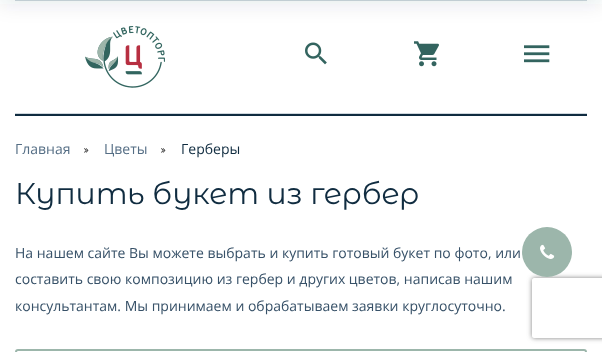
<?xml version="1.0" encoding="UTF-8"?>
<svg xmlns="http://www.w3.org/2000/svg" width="602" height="352">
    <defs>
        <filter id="blur1" x="-50%" y="-200%" width="200%" height="500%"><feGaussianBlur stdDeviation="10"/></filter>
        <clipPath id="clip1"><path d="M 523 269 H 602 V 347 H 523 Z M 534 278 H 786 C 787 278 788 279 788 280 V 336 C 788 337 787 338 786 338 H 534 C 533 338 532 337 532 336 V 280 C 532 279 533 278 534 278 Z" clip-rule="evenodd"/></clipPath>
        <filter id="blur2" x="-50%" y="-200%" width="200%" height="500%"><feGaussianBlur stdDeviation="2.5"/></filter>
    </defs>
    <rect width="100%" height="100%" fill="#FFFFFF"/>
    <rect x="15" y="0" width="572" height="1" fill="#CFD7DD"/>
    <image x="85" y="26" width="80" height="62" href="img_01.png"/>
    <rect x="0" y="-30" width="602" height="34" fill="#102C40" fill-opacity="0.1" filter="url(#blur1)"/>
    <rect x="15" y="113" width="572" height="1" fill="#CFD7DD"/>
    <image x="305" y="42" width="22" height="23" href="img_02.png"/>
    <image x="414" y="41" width="25" height="26" href="img_03.png"/>
    <image x="524" y="45" width="26" height="18" href="img_04.png"/>
    <rect x="15" y="114" width="572" height="2" fill="#102C40"/>
    <text x="15" y="154" font-family="Open Sans" font-size="14" fill="#556E85">Главная</text>
    <image x="84" y="148" width="5" height="5" href="img_05.png"/>
    <text x="104" y="154" font-family="Open Sans" font-size="14" fill="#556E85">Цветы</text>
    <image x="161" y="148" width="5" height="5" href="img_05.png"/>
    <text x="181" y="154" font-family="Open Sans" font-size="14" fill="#102C40">Герберы</text>
    <text x="15" y="204" font-family="Montserrat Alternates" font-size="30" fill="#102C40">Купить букет из гербер</text>
    <text font-family="Open Sans" font-size="14" fill="#375168">
        <tspan x="15" y="258">На нашем сайте Вы можете выбрать и купить готовый букет по фото, или</tspan>
        <tspan x="15" y="284">составить свою композицию из гербер и других цветов, написав нашим</tspan>
        <tspan x="15" y="311">консультантам. Мы принимаем и обрабатываем заявки круглосуточно.</tspan>
    </text>
    <rect x="16" y="350" width="570" height="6" rx="2" fill="none" stroke="#9CB6AB" stroke-width="2"/>
    <g clip-path="url(#clip1)">
        <rect x="532" y="278" width="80" height="60" rx="2" fill="#808080" filter="url(#blur2)"/>
    </g>
    <circle cx="547" cy="252" r="25" fill="#9CB6AB"/>
    <image x="540" y="244" width="15" height="15" href="img_06.png"/>
</svg>
